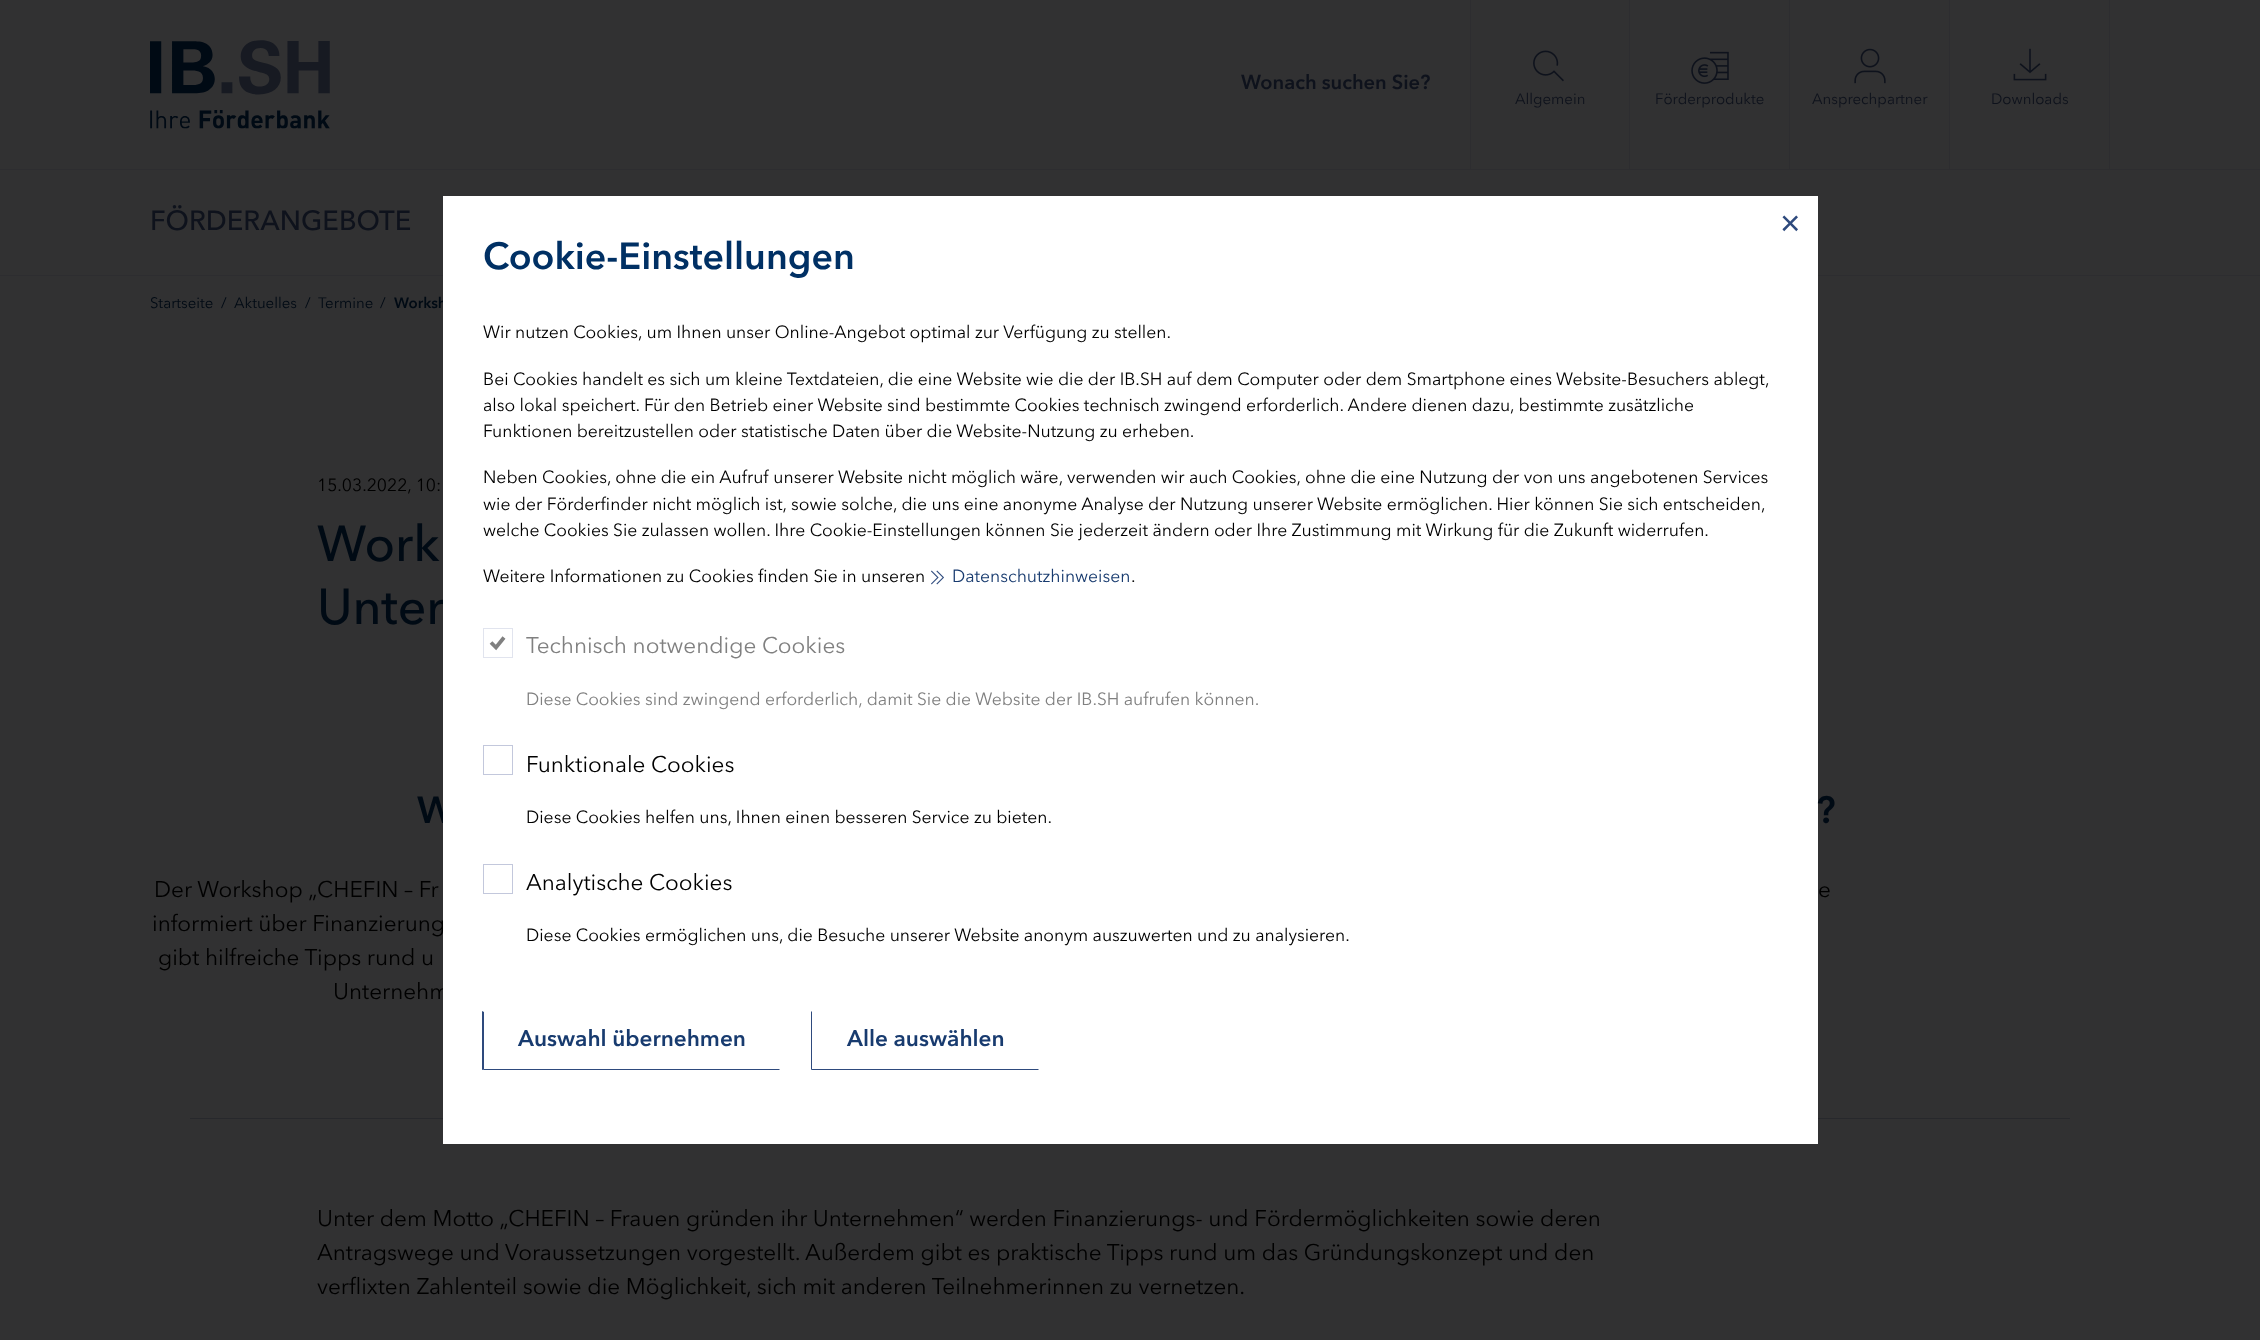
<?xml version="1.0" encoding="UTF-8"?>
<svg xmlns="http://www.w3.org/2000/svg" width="2260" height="1340">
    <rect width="100%" height="100%" fill="#313132"/>
    <rect x="0" y="169" width="2260" height="1" fill="#2D2D30"/>
    <image x="150" y="40" width="180" height="89" href="img_01.png"/>
    <text x="1241" y="89" font-family="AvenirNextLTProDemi" font-size="20" fill="#0E121C">Wonach suchen Sie?</text>
    <rect x="1629" y="0" width="1" height="169" fill="#2D2D30"/>
    <rect x="1470" y="0" width="1" height="169" fill="#2D2D30"/>
    <image x="1533" y="50" width="31" height="32" href="img_02.png"/>
    <text x="1515" y="104" font-family="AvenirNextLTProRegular" font-size="15" fill="#0E121C">Allgemein</text>
    <rect x="1789" y="0" width="1" height="169" fill="#2D2D30"/>
    <image x="1691" y="51" width="38" height="33" href="img_03.png"/>
    <text x="1655" y="104" font-family="AvenirNextLTProRegular" font-size="15" fill="#0E121C">Förderprodukte</text>
    <rect x="1949" y="0" width="1" height="169" fill="#2D2D30"/>
    <image x="1854" y="48" width="32" height="36" href="img_04.png"/>
    <text x="1812" y="104" font-family="AvenirNextLTProRegular" font-size="15" fill="#0E121C">Ansprechpartner</text>
    <rect x="2109" y="0" width="1" height="169" fill="#2D2D30"/>
    <image x="2013" y="48" width="34" height="33" href="img_05.png"/>
    <text x="1991" y="104" font-family="AvenirNextLTProRegular" font-size="15" fill="#0E121C">Downloads</text>
    <rect x="0" y="275" width="2260" height="1" fill="#2D2D30"/>
    <text x="150" y="230" font-family="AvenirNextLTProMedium" font-size="27.5" fill="#0E121C">FÖRDERANGEBOTE</text>
    <text x="394" y="308" font-family="AvenirNextLTProDemi" font-size="15" fill="#000A14">Worksh</text>
    <text x="317" y="624" font-family="AvenirNextLTProMedium" font-size="50" fill="#000A14">Unter</text>
    <text x="417" y="823" font-family="AvenirNextLTProDemi" font-size="37.5" fill="#000A14">W</text>
    <text x="333" y="999" font-family="AvenirNextLTProRegular" font-size="22.5" fill="#000000">Unternehm</text>
    <rect x="190" y="1118" width="1880" height="1" fill="#27282C"/>
    <rect x="443" y="196" width="1375" height="948" fill="#FFFFFF"/>
    <text x="1780" y="235" font-family="Liberation Sans" font-size="35" fill="#2E4A7D">×</text>
    <text x="483" y="269" font-family="AvenirNextLTProDemi" font-size="37.5" fill="#003064">Cookie-Einstellungen</text>
    <text x="483" y="338" font-family="AvenirNextLTProRegular" font-size="17.5" fill="#000000">Wir nutzen Cookies, um Ihnen unser Online-Angebot optimal zur Verfügung zu stellen.</text>
    <text font-family="AvenirNextLTProRegular" font-size="17.5" fill="#000000">
        <tspan x="483" y="385">Bei Cookies handelt es sich um kleine Textdateien, die eine Website wie die der IB.SH auf dem Computer oder dem Smartphone eines Website-Besuchers ablegt,</tspan>
        <tspan x="483" y="411">also lokal speichert. Für den Betrieb einer Website sind bestimmte Cookies technisch zwingend erforderlich. Andere dienen dazu, bestimmte zusätzliche</tspan>
        <tspan x="483" y="437">Funktionen bereitzustellen oder statistische Daten über die Website-Nutzung zu erheben.</tspan>
    </text>
    <text font-family="AvenirNextLTProRegular" font-size="17.5" fill="#000000">
        <tspan x="483" y="483">Neben Cookies, ohne die ein Aufruf unserer Website nicht möglich wäre, verwenden wir auch Cookies, ohne die eine Nutzung der von uns angebotenen Services</tspan>
        <tspan x="483" y="510">wie der Förderfinder nicht möglich ist, sowie solche, die uns eine anonyme Analyse der Nutzung unserer Website ermöglichen. Hier können Sie sich entscheiden,</tspan>
        <tspan x="483" y="536">welche Cookies Sie zulassen wollen. Ihre Cookie-Einstellungen können Sie jederzeit ändern oder Ihre Zustimmung mit Wirkung für die Zukunft widerrufen.</tspan>
    </text>
    <text x="483" y="582" font-family="AvenirNextLTProRegular" font-size="17.5" fill="#000000">Weitere Informationen zu Cookies finden Sie in unseren</text>
    <image x="931" y="570" width="13" height="15" href="img_06.png"/>
    <text x="952" y="582" font-family="AvenirNextLTProRegular" font-size="17.5" fill="#183B6F">Datenschutzhinweisen</text>
    <text x="1131" y="582" font-family="AvenirNextLTProRegular" font-size="17.5" fill="#000000">.</text>
    <path d="M 491 642.5 L 496 647.5 L 504 637.5" fill="none" stroke="#808080" stroke-width="3.8"/>
    <rect x="483.5" y="628.5" width="29" height="29" fill="none" stroke="#E1E4EE"/>
    <text x="526" y="653" font-family="AvenirNextLTProRegular" font-size="22.5" fill="#808080">Technisch notwendige Cookies</text>
    <text x="526" y="705" font-family="AvenirNextLTProRegular" font-size="17.5" fill="#808080">Diese Cookies sind zwingend erforderlich, damit Sie die Website der IB.SH aufrufen können.</text>
    <rect x="483.5" y="745.5" width="29" height="29" fill="none" stroke="#C3C8DC"/>
    <text x="526" y="772" font-family="AvenirNextLTProRegular" font-size="22.5" fill="#000000">Funktionale Cookies</text>
    <text x="526" y="823" font-family="AvenirNextLTProRegular" font-size="17.5" fill="#000000">Diese Cookies helfen uns, Ihnen einen besseren Service zu bieten.</text>
    <rect x="483.5" y="864.5" width="29" height="29" fill="none" stroke="#C3C8DC"/>
    <text x="526" y="890" font-family="AvenirNextLTProRegular" font-size="22.5" fill="#000000">Analytische Cookies</text>
    <text x="526" y="941" font-family="AvenirNextLTProRegular" font-size="17.5" fill="#000000">Diese Cookies ermöglichen uns, die Besuche unserer Website anonym auszuwerten und zu analysieren.</text>
    <path d="M 780 1070 H 482 L 484 1069 H 779 Z" fill="#2E4A7D"/>
    <path d="M 482 1070 V 1011 L 484 1012 V 1069 Z" fill="#2E4A7D"/>
    <text x="518" y="1046" font-family="AvenirNextLTProDemi" font-size="22.5" fill="#183B6F">Auswahl übernehmen</text>
    <path d="M 1039 1070 H 811 L 812 1069 H 1038 Z" fill="#2E4A7D"/>
    <path d="M 811 1070 V 1011 L 812 1012 V 1069 Z" fill="#2E4A7D"/>
    <text x="847" y="1046" font-family="AvenirNextLTProDemi" font-size="22.5" fill="#183B6F">Alle auswählen</text>
    <text x="150" y="308" font-family="AvenirNextLTProRegular" font-size="15" fill="#000A14">Startseite</text>
    <text x="221" y="308" font-family="AvenirNextLTProRegular" font-size="15" fill="#000A14">/</text>
    <text x="234" y="308" font-family="AvenirNextLTProRegular" font-size="15" fill="#000A14">Aktuelles</text>
    <text x="305" y="308" font-family="AvenirNextLTProRegular" font-size="15" fill="#000A14">/</text>
    <text x="318" y="308" font-family="AvenirNextLTProRegular" font-size="15" fill="#000A14">Termine</text>
    <text x="380" y="308" font-family="AvenirNextLTProRegular" font-size="15" fill="#000A14">/</text>
    <text x="317" y="491" font-family="AvenirNextLTProRegular" font-size="17.5" fill="#000000">15.03.2022, 10:</text>
    <text x="317" y="561" font-family="AvenirNextLTProMedium" font-size="50" fill="#000A14">Work</text>
    <text x="154" y="897" font-family="AvenirNextLTProRegular" font-size="22.5" fill="#000000">Der Workshop „CHEFIN – Fr</text>
    <text x="152" y="931" font-family="AvenirNextLTProRegular" font-size="22.5" fill="#000000">informiert über Finanzierung</text>
    <text x="158" y="965" font-family="AvenirNextLTProRegular" font-size="22.5" fill="#000000">gibt hilfreiche Tipps rund u</text>
    <text x="1816" y="823" font-family="AvenirNextLTProDemi" font-size="37.5" fill="#000A14">?</text>
    <text x="1818" y="897" font-family="AvenirNextLTProRegular" font-size="22.5" fill="#000000">e</text>
    <text font-family="AvenirNextLTProRegular" font-size="22.5" fill="#000000">
        <tspan x="317" y="1226">Unter dem Motto „CHEFIN – Frauen gründen ihr Unternehmen“ werden Finanzierungs- und Fördermöglichkeiten sowie deren</tspan>
        <tspan x="317" y="1260">Antragswege und Voraussetzungen vorgestellt. Außerdem gibt es praktische Tipps rund um das Gründungskonzept und den</tspan>
        <tspan x="317" y="1294">verflixten Zahlenteil sowie die Möglichkeit, sich mit anderen Teilnehmerinnen zu vernetzen.</tspan>
    </text>
</svg>
